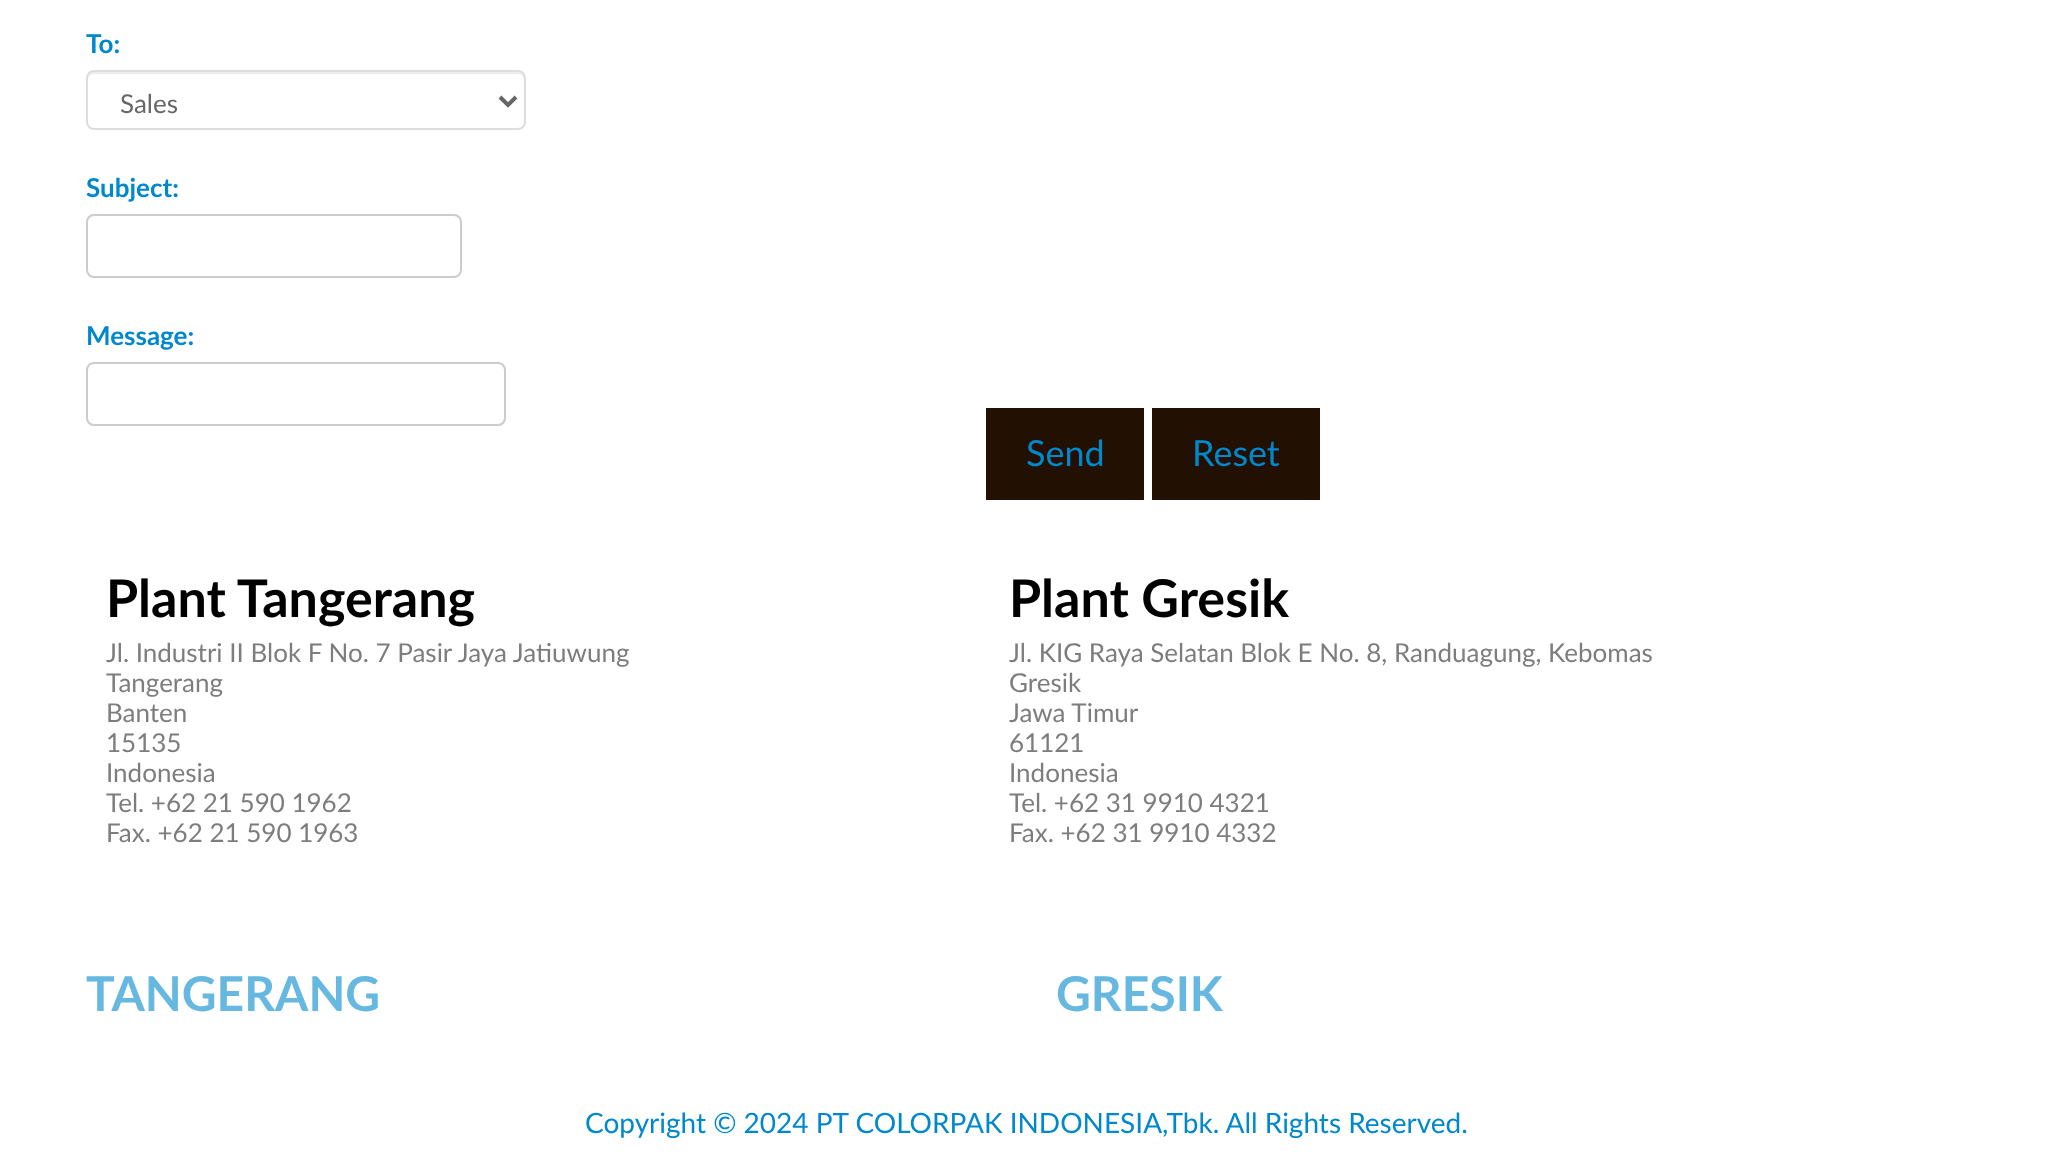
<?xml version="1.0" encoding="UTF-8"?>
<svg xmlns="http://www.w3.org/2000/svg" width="2051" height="1156">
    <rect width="100%" height="100%" fill="#FFFFFF"/>
    <text x="86" y="53" font-family="Lato" font-size="26" font-weight="700" fill="#0088CC">To:</text>
    <path d="M 94 74 H 518 C 521 74 524 77 524 80 V 78 C 524 75 521 72 518 72 H 94 C 91 72 88 75 88 78 V 80 C 88 77 91 74 94 74 Z" fill="#ECECEC"/>
    <rect x="87" y="71" width="438" height="58" rx="7" fill="none" stroke="#DDDDDD" stroke-width="2"/>
    <path d="M 500 97 L 508 105 L 516 97" fill="none" stroke="#666666" stroke-width="4"/>
    <text x="120" y="113" font-family="Lato" font-size="26" fill="#666666">Sales</text>
    <text x="86" y="197" font-family="Lato" font-size="26" font-weight="700" fill="#0088CC">Subject:</text>
    <rect x="87" y="215" width="374" height="62" rx="7" fill="none" stroke="#CCCCCC" stroke-width="2"/>
    <text x="86" y="345" font-family="Lato" font-size="26" font-weight="700" fill="#0088CC">Message:</text>
    <rect x="87" y="363" width="418" height="62" rx="7" fill="none" stroke="#CCCCCC" stroke-width="2"/>
    <rect x="986" y="408" width="158" height="92" fill="#221003"/>
    <text x="1026" y="466" font-family="Lato" font-size="36" fill="#0088CC">Send</text>
    <rect x="1152" y="408" width="168" height="92" fill="#221003"/>
    <text x="1192" y="466" font-family="Lato" font-size="36" fill="#0088CC">Reset</text>
    <text x="106" y="617" font-family="Lato" font-size="52" font-weight="700" fill="#000000">Plant Tangerang</text>
    <text font-family="Lato" font-size="26" fill="#7D7D7D">
        <tspan x="106" y="662">Jl. Industri II Blok F No. 7 Pasir Jaya Jatiuwung</tspan>
        <tspan x="106" y="692">Tangerang</tspan>
        <tspan x="106" y="722">Banten</tspan>
        <tspan x="106" y="752">15135</tspan>
        <tspan x="106" y="782">Indonesia</tspan>
        <tspan x="106" y="812">Tel. +62 21 590 1962</tspan>
        <tspan x="106" y="842">Fax. +62 21 590 1963</tspan>
    </text>
    <text x="1009" y="617" font-family="Lato" font-size="52" font-weight="700" fill="#000000">Plant Gresik</text>
    <text font-family="Lato" font-size="26" fill="#7D7D7D">
        <tspan x="1009" y="662">Jl. KIG Raya Selatan Blok E No. 8, Randuagung, Kebomas</tspan>
        <tspan x="1009" y="692">Gresik</tspan>
        <tspan x="1009" y="722">Jawa Timur</tspan>
        <tspan x="1009" y="752">61121</tspan>
        <tspan x="1009" y="782">Indonesia</tspan>
        <tspan x="1009" y="812">Tel. +62 31 9910 4321</tspan>
        <tspan x="1009" y="842">Fax. +62 31 9910 4332</tspan>
    </text>
    <text x="86" y="1011" font-family="Lato" font-size="48" font-weight="700" fill="#66B8E0">TANGERANG</text>
    <text x="1056" y="1011" font-family="Lato" font-size="48" font-weight="700" fill="#66B8E0">GRESIK</text>
    <text x="585" y="1133" font-family="Lato" font-size="28" fill="#0088CC">Copyright © 2024 PT COLORPAK INDONESIA,Tbk. All Rights Reserved.</text>
</svg>
